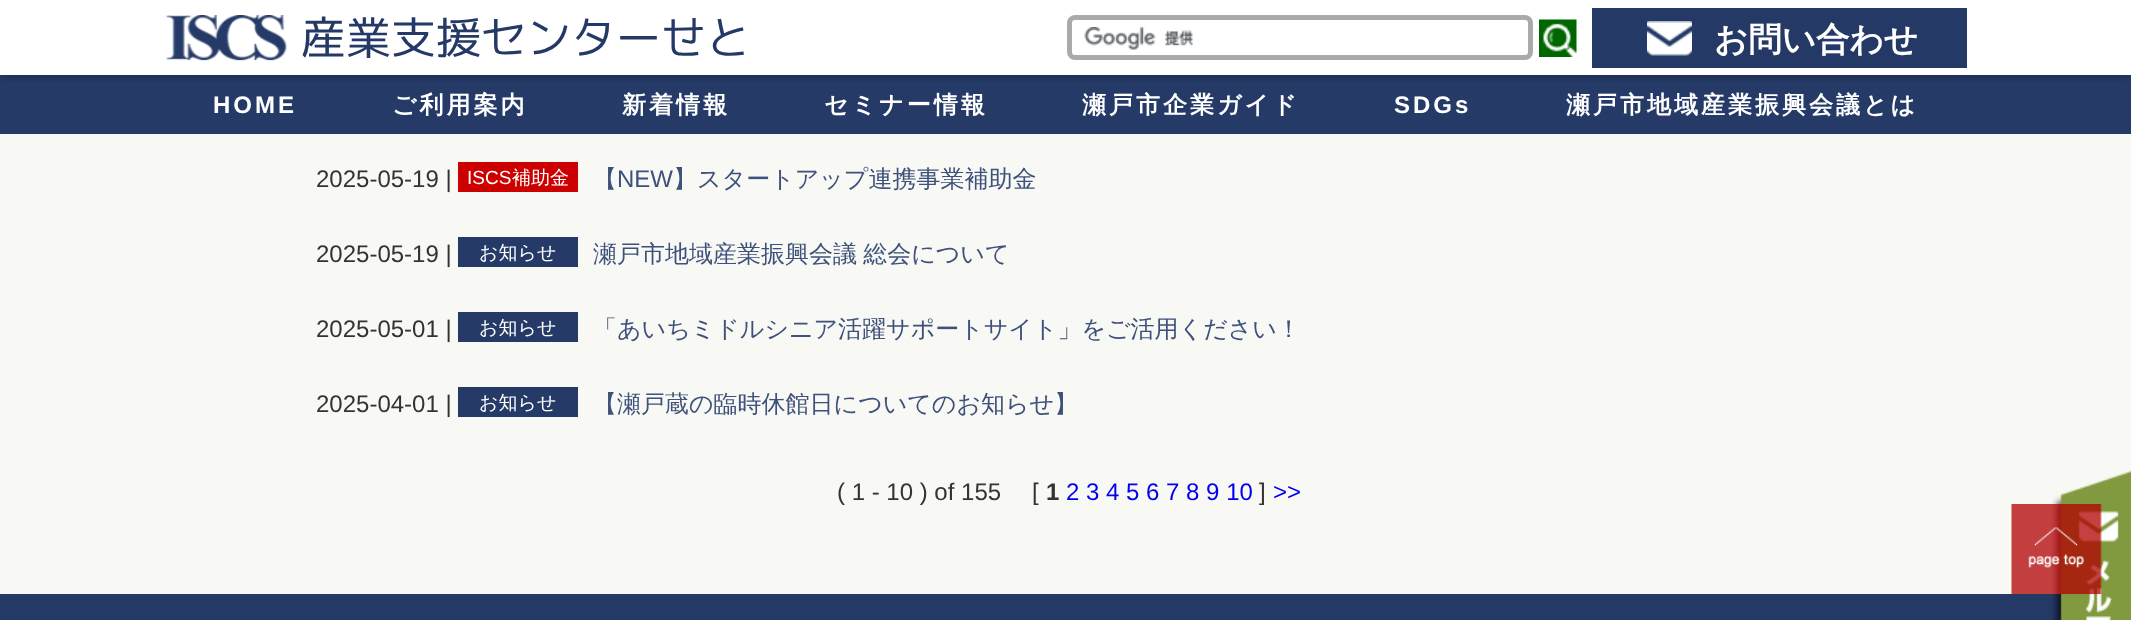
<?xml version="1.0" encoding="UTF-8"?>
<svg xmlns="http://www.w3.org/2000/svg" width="2131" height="620">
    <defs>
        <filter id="blur1" x="-50%" y="-200%" width="200%" height="500%"><feGaussianBlur stdDeviation="3"/></filter>
    </defs>
    <rect width="100%" height="100%" fill="#FFFFFF"/>
    <image x="0" y="134" width="2131" height="460" href="img_01.png"/>
    <rect x="0" y="75" width="2131" height="59" fill="#253A67"/>
    <rect x="2" y="6" width="2128" height="72" fill="#000000" fill-opacity="0.2" filter="url(#blur1)"/>
    <rect x="0" y="1" width="2131" height="74" fill="#FFFFFF"/>
    <image x="166" y="15" width="121" height="46" href="img_02.png"/>
    <text x="301" y="54" font-family="'M PLUS 1p'" font-size="45" fill="#253966">産業支援センターせと</text>
    <image x="1084" y="27" width="110" height="23" href="img_03.png"/>
    <rect x="1069.5" y="17.5" width="461" height="40" rx="5.5" fill="none" stroke="#AAAAAA" stroke-width="5"/>
    <image x="1539" y="19" width="38" height="38" href="img_04.png"/>
    <rect x="1592" y="8" width="375" height="60" fill="#253966"/>
    <image x="1647" y="21" width="45" height="35" href="img_05.png"/>
    <text x="1714" y="51" font-family="WenQuanYi Zen Hei" font-size="33.5" font-weight="700" fill="#FFFFFF">お問い合わせ</text>
    <text x="213" y="113" font-family="Liberation Sans" font-size="24" font-weight="700" letter-spacing="3" fill="#FFFFFF">HOME</text>
    <text x="392" y="113" font-family="WenQuanYi Zen Hei" font-size="24" font-weight="700" letter-spacing="3" fill="#FFFFFF">ご利用案内</text>
    <text x="622" y="113" font-family="WenQuanYi Zen Hei" font-size="24" font-weight="700" letter-spacing="3" fill="#FFFFFF">新着情報</text>
    <text x="824" y="113" font-family="WenQuanYi Zen Hei" font-size="24" font-weight="700" letter-spacing="3" fill="#FFFFFF">セミナー情報</text>
    <text x="1082" y="113" font-family="WenQuanYi Zen Hei" font-size="24" font-weight="700" letter-spacing="3" fill="#FFFFFF">瀬戸市企業ガイド</text>
    <text x="1394" y="113" font-family="Liberation Sans" font-size="24" font-weight="700" letter-spacing="3" fill="#FFFFFF">SDGs</text>
    <text x="1566" y="113" font-family="WenQuanYi Zen Hei" font-size="24" font-weight="700" letter-spacing="3" fill="#FFFFFF">瀬戸市地域産業振興会議とは</text>
    <text x="316" y="187" font-family="Liberation Sans" font-size="24" fill="#333333">2025-05-19 |</text>
    <rect x="458" y="162" width="120" height="30" fill="#CC0000"/>
    <text x="467" y="184" font-family="Liberation Sans" font-size="19" fill="#FFFFFF">ISCS</text>
    <text x="512" y="184" font-family="WenQuanYi Zen Hei" font-size="19" font-weight="500" fill="#FFFFFF">補助金</text>
    <text x="593" y="187" font-family="WenQuanYi Zen Hei" font-size="24" font-weight="500" fill="#3D517A">【</text>
    <text x="617" y="187" font-family="Liberation Sans" font-size="24" fill="#3D517A">NEW</text>
    <text x="673" y="187" font-family="WenQuanYi Zen Hei" font-size="24" font-weight="500" fill="#3D517A">】スタートアップ連携事業補助金</text>
    <text x="316" y="262" font-family="Liberation Sans" font-size="24" fill="#333333">2025-05-19 |</text>
    <rect x="458" y="237" width="120" height="30" fill="#253A67"/>
    <text x="479" y="259" font-family="WenQuanYi Zen Hei" font-size="19" font-weight="500" fill="#FFFFFF">お知らせ</text>
    <text x="593" y="262" word-spacing="-1" font-family="WenQuanYi Zen Hei" font-size="24" font-weight="500" fill="#3D517A">瀬戸市地域産業振興会議 総会について</text>
    <text x="316" y="337" font-family="Liberation Sans" font-size="24" fill="#333333">2025-05-01 |</text>
    <rect x="458" y="312" width="120" height="30" fill="#253A67"/>
    <text x="479" y="334" font-family="WenQuanYi Zen Hei" font-size="19" font-weight="500" fill="#FFFFFF">お知らせ</text>
    <text x="593" y="337" font-family="WenQuanYi Zen Hei" font-size="24" font-weight="500" fill="#3D517A">「あいちミドルシニア活躍サポートサイト」をご活用ください！</text>
    <text x="316" y="412" font-family="Liberation Sans" font-size="24" fill="#333333">2025-04-01 |</text>
    <rect x="458" y="387" width="120" height="30" fill="#253A67"/>
    <text x="479" y="409" font-family="WenQuanYi Zen Hei" font-size="19" font-weight="500" fill="#FFFFFF">お知らせ</text>
    <text x="593" y="412" font-family="WenQuanYi Zen Hei" font-size="24" font-weight="500" fill="#3D517A">【瀬戸蔵の臨時休館日についてのお知らせ】</text>
    <text x="837" y="500" font-family="Liberation Sans" font-size="24" fill="#333333">( 1 - 10 ) of 155</text>
    <text x="1032" y="500" font-family="Liberation Sans" font-size="24" fill="#333333">[</text>
    <text x="1046" y="500" font-family="Liberation Sans" font-size="24" font-weight="700" fill="#333333">1</text>
    <text x="1066" y="500" font-family="Liberation Sans" font-size="24" fill="#0000EE">2 3 4 5 6 7 8 9 10</text>
    <text x="1259" y="500" font-family="Liberation Sans" font-size="24" fill="#333333">]</text>
    <text x="1273" y="500" font-family="Liberation Sans" font-size="24" fill="#0000EE">&gt;&gt;</text>
    <rect x="0" y="594" width="2062" height="26" fill="#253966"/>
    <image x="2051" y="470" width="80" height="150" href="img_07.png"/>
    <image x="2011" y="504" width="91" height="91" href="img_06.png"/>
</svg>
